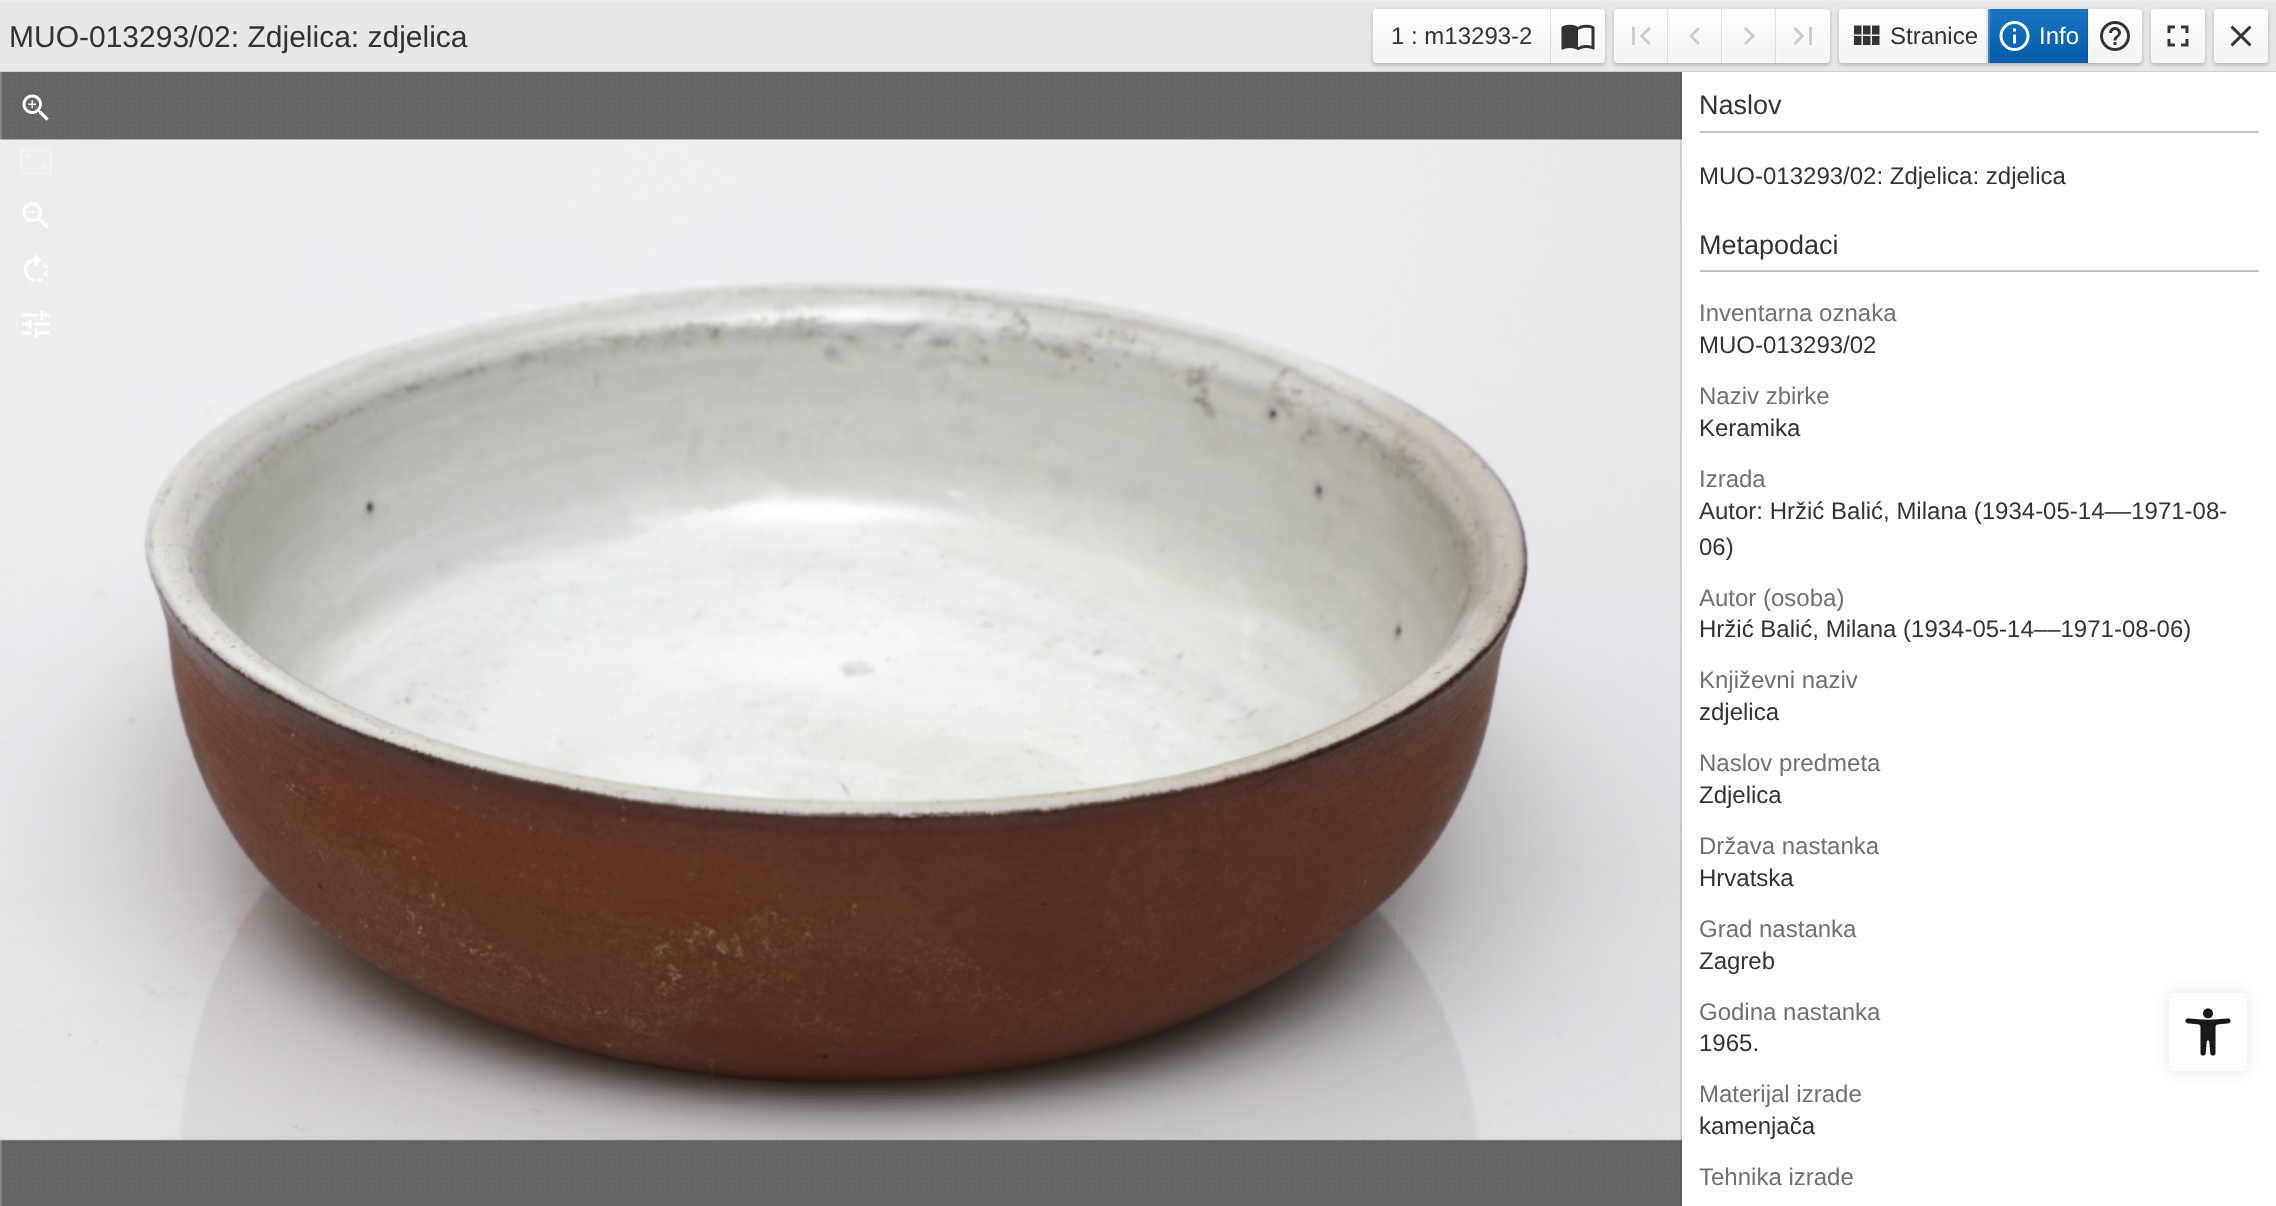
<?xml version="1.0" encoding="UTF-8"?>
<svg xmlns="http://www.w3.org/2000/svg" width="2276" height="1206">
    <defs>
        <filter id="blur1" x="-50%" y="-200%" width="200%" height="500%"><feGaussianBlur stdDeviation="2"/></filter>
        <linearGradient id="g1" gradientUnits="userSpaceOnUse" x1="1462" y1="9" x2="1462" y2="63"><stop offset="0" stop-color="#FFFFFF"/><stop offset="1" stop-color="#F2F2F2"/></linearGradient>
        <linearGradient id="g2" gradientUnits="userSpaceOnUse" x1="1462" y1="9" x2="1462" y2="63"><stop offset="0" stop-color="#E6E6E6"/><stop offset="1" stop-color="#DADADA"/></linearGradient>
        <linearGradient id="g3" gradientUnits="userSpaceOnUse" x1="1578" y1="9" x2="1578" y2="63"><stop offset="0" stop-color="#FFFFFF"/><stop offset="1" stop-color="#F2F2F2"/></linearGradient>
        <linearGradient id="g4" gradientUnits="userSpaceOnUse" x1="1578" y1="9" x2="1578" y2="63"><stop offset="0" stop-color="#FFFFFF"/><stop offset="1" stop-color="#F5F5F5"/></linearGradient>
        <linearGradient id="g5" gradientUnits="userSpaceOnUse" x1="1641" y1="9" x2="1641" y2="63"><stop offset="0" stop-color="#FFFFFF"/><stop offset="1" stop-color="#F2F2F2"/></linearGradient>
        <linearGradient id="g6" gradientUnits="userSpaceOnUse" x1="1641" y1="9" x2="1641" y2="63"><stop offset="0" stop-color="#E6E6E6"/><stop offset="1" stop-color="#DADADA"/></linearGradient>
        <linearGradient id="g7" gradientUnits="userSpaceOnUse" x1="1695" y1="9" x2="1695" y2="63"><stop offset="0" stop-color="#FFFFFF"/><stop offset="1" stop-color="#F2F2F2"/></linearGradient>
        <linearGradient id="g8" gradientUnits="userSpaceOnUse" x1="1695" y1="9" x2="1695" y2="63"><stop offset="0" stop-color="#E6E6E6"/><stop offset="1" stop-color="#DADADA"/></linearGradient>
        <linearGradient id="g9" gradientUnits="userSpaceOnUse" x1="1695" y1="9" x2="1695" y2="63"><stop offset="0" stop-color="#FFFFFF"/><stop offset="1" stop-color="#F5F5F5"/></linearGradient>
        <linearGradient id="g10" gradientUnits="userSpaceOnUse" x1="1749" y1="9" x2="1749" y2="63"><stop offset="0" stop-color="#FFFFFF"/><stop offset="1" stop-color="#F2F2F2"/></linearGradient>
        <linearGradient id="g11" gradientUnits="userSpaceOnUse" x1="1749" y1="9" x2="1749" y2="63"><stop offset="0" stop-color="#E6E6E6"/><stop offset="1" stop-color="#DADADA"/></linearGradient>
        <linearGradient id="g12" gradientUnits="userSpaceOnUse" x1="1749" y1="9" x2="1749" y2="63"><stop offset="0" stop-color="#FFFFFF"/><stop offset="1" stop-color="#F5F5F5"/></linearGradient>
        <linearGradient id="g13" gradientUnits="userSpaceOnUse" x1="1803" y1="9" x2="1803" y2="63"><stop offset="0" stop-color="#FFFFFF"/><stop offset="1" stop-color="#F2F2F2"/></linearGradient>
        <linearGradient id="g14" gradientUnits="userSpaceOnUse" x1="1803" y1="9" x2="1803" y2="63"><stop offset="0" stop-color="#FFFFFF"/><stop offset="1" stop-color="#F5F5F5"/></linearGradient>
        <linearGradient id="g15" gradientUnits="userSpaceOnUse" x1="1913" y1="9" x2="1913" y2="63"><stop offset="0" stop-color="#FFFFFF"/><stop offset="1" stop-color="#F2F2F2"/></linearGradient>
        <linearGradient id="g16" gradientUnits="userSpaceOnUse" x1="1913" y1="9" x2="1913" y2="63"><stop offset="0" stop-color="#E6E6E6"/><stop offset="1" stop-color="#DADADA"/></linearGradient>
        <linearGradient id="g17" gradientUnits="userSpaceOnUse" x1="2038" y1="9" x2="2038" y2="63"><stop offset="0" stop-color="#1A75C2"/><stop offset="1" stop-color="#005CA8"/></linearGradient>
        <linearGradient id="g18" gradientUnits="userSpaceOnUse" x1="2038" y1="9" x2="2038" y2="63"><stop offset="0" stop-color="#1769AF"/><stop offset="1" stop-color="#005397"/></linearGradient>
        <linearGradient id="g19" gradientUnits="userSpaceOnUse" x1="2038" y1="9" x2="2038" y2="63"><stop offset="0" stop-color="#4891CE"/><stop offset="1" stop-color="#337DB9"/></linearGradient>
        <linearGradient id="g20" gradientUnits="userSpaceOnUse" x1="2115" y1="9" x2="2115" y2="63"><stop offset="0" stop-color="#FFFFFF"/><stop offset="1" stop-color="#F2F2F2"/></linearGradient>
        <linearGradient id="g21" gradientUnits="userSpaceOnUse" x1="2115" y1="9" x2="2115" y2="63"><stop offset="0" stop-color="#FFFFFF"/><stop offset="1" stop-color="#F5F5F5"/></linearGradient>
        <linearGradient id="g22" gradientUnits="userSpaceOnUse" x1="2178" y1="9" x2="2178" y2="63"><stop offset="0" stop-color="#FFFFFF"/><stop offset="1" stop-color="#F2F2F2"/></linearGradient>
        <linearGradient id="g23" gradientUnits="userSpaceOnUse" x1="2241" y1="9" x2="2241" y2="63"><stop offset="0" stop-color="#FFFFFF"/><stop offset="1" stop-color="#F2F2F2"/></linearGradient>
        <clipPath id="clip1"><path d="M 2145 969 H 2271 V 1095 H 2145 Z M 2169 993 H 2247 V 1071 H 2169 Z" clip-rule="evenodd"/></clipPath>
        <filter id="blur2" x="-50%" y="-200%" width="200%" height="500%"><feGaussianBlur stdDeviation="7.5"/></filter>
    </defs>
    <rect width="100%" height="100%" fill="#E7E7E7"/>
    <rect x="0" y="71" width="2276" height="1" fill="#D0D0D0"/>
    <rect x="0" y="0" width="2276" height="2" fill="#ECECEC"/>
    <text x="9" y="47" font-family="Liberation Sans" font-size="30" fill="#333333">MUO-013293/02: Zdjelica: zdjelica</text>
    <rect x="1373" y="11" width="232" height="54" rx="3" fill="#000000" fill-opacity="0.24" filter="url(#blur1)"/>
    <path d="M 1376 9 H 1551 V 63 H 1376 C 1374.5 63 1373 61.5 1373 60 V 12 C 1373 10.5 1374.5 9 1376 9 Z" fill="url(#g1)"/>
    <rect x="1550" y="9" width="1" height="54" fill="url(#g2)"/>
    <text x="1391" y="44" font-family="Liberation Sans" font-size="24" fill="#333333">1 : m13293-2</text>
    <path d="M 1551 9 H 1602 C 1603.5 9 1605 10.5 1605 12 V 60 C 1605 61.5 1603.5 63 1602 63 H 1551 Z" fill="url(#g3)"/>
    <rect x="1551" y="48" width="1" height="15" fill="url(#g4)"/>
    <image x="1561" y="24" width="34" height="27" href="img_01.png"/>
    <rect x="1614" y="11" width="216" height="54" rx="3" fill="#000000" fill-opacity="0.24" filter="url(#blur1)"/>
    <path d="M 1617 9 H 1668 V 63 H 1617 C 1615.5 63 1614 61.5 1614 60 V 12 C 1614 10.5 1615.5 9 1617 9 Z" fill="url(#g5)"/>
    <rect x="1667" y="9" width="1" height="54" fill="url(#g6)"/>
    <image x="1632" y="27" width="19" height="18" href="img_02.png"/>
    <rect x="1670" y="9" width="51" height="54" fill="url(#g7)"/>
    <rect x="1721" y="9" width="1" height="54" fill="url(#g8)"/>
    <rect x="1668" y="9" width="2" height="54" fill="url(#g9)"/>
    <path d="M 1700 29 L 1693 36 L 1700 43 L 1698 45 L 1689 36 L 1698 27 Z" fill="#CCCCCC"/>
    <rect x="1724" y="9" width="51" height="54" fill="url(#g10)"/>
    <rect x="1775" y="9" width="1" height="54" fill="url(#g11)"/>
    <rect x="1722" y="9" width="2" height="54" fill="url(#g12)"/>
    <path d="M 1746 27 L 1755 36 L 1746 45 L 1744 43 L 1751 36 L 1744 29 Z" fill="#CCCCCC"/>
    <path d="M 1776 9 H 1827 C 1828.5 9 1830 10.5 1830 12 V 60 C 1830 61.5 1828.5 63 1827 63 H 1776 Z" fill="url(#g13)"/>
    <rect x="1776" y="48" width="2" height="15" fill="url(#g14)"/>
    <image x="1793" y="27" width="19" height="18" href="img_03.png"/>
    <rect x="1839" y="11" width="303" height="54" rx="3" fill="#000000" fill-opacity="0.24" filter="url(#blur1)"/>
    <path d="M 1842 9 H 1988 V 63 H 1842 C 1840.5 63 1839 61.5 1839 60 V 12 C 1839 10.5 1840.5 9 1842 9 Z" fill="url(#g15)"/>
    <rect x="1986" y="9" width="2" height="54" fill="url(#g16)"/>
    <image x="1853" y="25" width="27" height="20" href="img_04.png"/>
    <text x="1890" y="44" font-family="Liberation Sans" font-size="24" fill="#333333">Stranice</text>
    <rect x="1990" y="9" width="97" height="54" fill="url(#g17)"/>
    <rect x="2087" y="9" width="1" height="54" fill="url(#g18)"/>
    <rect x="1988" y="9" width="2" height="54" fill="url(#g19)"/>
    <image x="1999" y="21" width="31" height="30" href="img_05.png"/>
    <text x="2039" y="44" font-family="Liberation Sans" font-size="24" fill="#FFFFFF">Info</text>
    <path d="M 2088 9 H 2139 C 2140.5 9 2142 10.5 2142 12 V 60 C 2142 61.5 2140.5 63 2139 63 H 2088 Z" fill="url(#g20)"/>
    <rect x="2088" y="48" width="2" height="15" fill="url(#g21)"/>
    <image x="2100" y="21" width="30" height="30" href="img_06.png"/>
    <rect x="2151" y="11" width="54" height="54" rx="3" fill="#000000" fill-opacity="0.24" filter="url(#blur1)"/>
    <rect x="2151" y="9" width="54" height="54" rx="3" fill="url(#g22)"/>
    <image x="2167" y="25" width="22" height="22" href="img_07.png"/>
    <rect x="2214" y="11" width="54" height="54" rx="3" fill="#000000" fill-opacity="0.24" filter="url(#blur1)"/>
    <rect x="2214" y="9" width="54" height="54" rx="3" fill="url(#g23)"/>
    <image x="2230" y="25" width="22" height="22" href="img_08.png"/>
    <rect x="0" y="72" width="1682" height="1134" fill="#666666"/>
    <image x="1" y="73" width="1676" height="1130" href="img_09.png"/>
    <rect x="0" y="72" width="2" height="1134" fill="#FFFFFF" fill-opacity="0.2"/>
    <image x="22" y="94" width="27" height="27" href="img_10.png"/>
    <image x="0" y="139" width="1682" height="1002" href="img_15.png"/>
    <image x="20" y="149" width="32" height="26" href="img_11.png"/>
    <image x="22" y="202" width="27" height="27" href="img_12.png"/>
    <image x="24" y="254" width="24" height="28" href="img_13.png"/>
    <image x="22" y="310" width="28" height="28" href="img_14.png"/>
    <rect x="1680" y="72" width="2" height="1134" fill="#000000" fill-opacity="0.1"/>
    <rect x="1682" y="72" width="594" height="1134" fill="#FFFFFF"/>
    <rect x="1700" y="131" width="559" height="2" fill="#C2C2C2"/>
    <text x="1699" y="114" font-family="Liberation Sans" font-size="27" fill="#333333">Naslov</text>
    <text x="1699" y="184" font-family="Liberation Sans" font-size="24" fill="#333333">MUO-013293/02: Zdjelica: zdjelica</text>
    <rect x="1700" y="270" width="559" height="2" fill="#C2C2C2"/>
    <text x="1699" y="254" font-family="Liberation Sans" font-size="27" fill="#333333">Metapodaci</text>
    <text x="1699" y="321" font-family="Liberation Sans" font-size="24" fill="#707070">Inventarna oznaka</text>
    <text x="1699" y="353" font-family="Liberation Sans" font-size="24" fill="#333333">MUO-013293/02</text>
    <text x="1699" y="404" font-family="Liberation Sans" font-size="24" fill="#707070">Naziv zbirke</text>
    <text x="1699" y="436" font-family="Liberation Sans" font-size="24" fill="#333333">Keramika</text>
    <text x="1699" y="487" font-family="Liberation Sans" font-size="24" fill="#707070">Izrada</text>
    <text font-family="Liberation Sans" font-size="24" fill="#333333">
        <tspan x="1699" y="519">Autor: Hržić Balić, Milana (1934-05-14––1971-08-</tspan>
        <tspan x="1699" y="555">06)</tspan>
    </text>
    <text x="1699" y="606" font-family="Liberation Sans" font-size="24" fill="#707070">Autor (osoba)</text>
    <text x="1699" y="637" font-family="Liberation Sans" font-size="24" fill="#333333">Hržić Balić, Milana (1934-05-14––1971-08-06)</text>
    <text x="1699" y="688" font-family="Liberation Sans" font-size="24" fill="#707070">Književni naziv</text>
    <text x="1699" y="720" font-family="Liberation Sans" font-size="24" fill="#333333">zdjelica</text>
    <text x="1699" y="771" font-family="Liberation Sans" font-size="24" fill="#707070">Naslov predmeta</text>
    <text x="1699" y="803" font-family="Liberation Sans" font-size="24" fill="#333333">Zdjelica</text>
    <text x="1699" y="854" font-family="Liberation Sans" font-size="24" fill="#707070">Država nastanka</text>
    <text x="1699" y="886" font-family="Liberation Sans" font-size="24" fill="#333333">Hrvatska</text>
    <text x="1699" y="937" font-family="Liberation Sans" font-size="24" fill="#707070">Grad nastanka</text>
    <text x="1699" y="969" font-family="Liberation Sans" font-size="24" fill="#333333">Zagreb</text>
    <text x="1699" y="1020" font-family="Liberation Sans" font-size="24" fill="#707070">Godina nastanka</text>
    <text x="1699" y="1051" font-family="Liberation Sans" font-size="24" fill="#333333">1965.</text>
    <text x="1699" y="1102" font-family="Liberation Sans" font-size="24" fill="#707070">Materijal izrade</text>
    <text x="1699" y="1134" font-family="Liberation Sans" font-size="24" fill="#333333">kamenjača</text>
    <text x="1699" y="1185" font-family="Liberation Sans" font-size="24" fill="#707070">Tehnika izrade</text>
    <g clip-path="url(#clip1)">
        <rect x="2169" y="993" width="78" height="78" fill="#000000" fill-opacity="0.1" filter="url(#blur2)"/>
    </g>
    <image x="2185" y="1008" width="46" height="48" href="img_16.png"/>
</svg>
